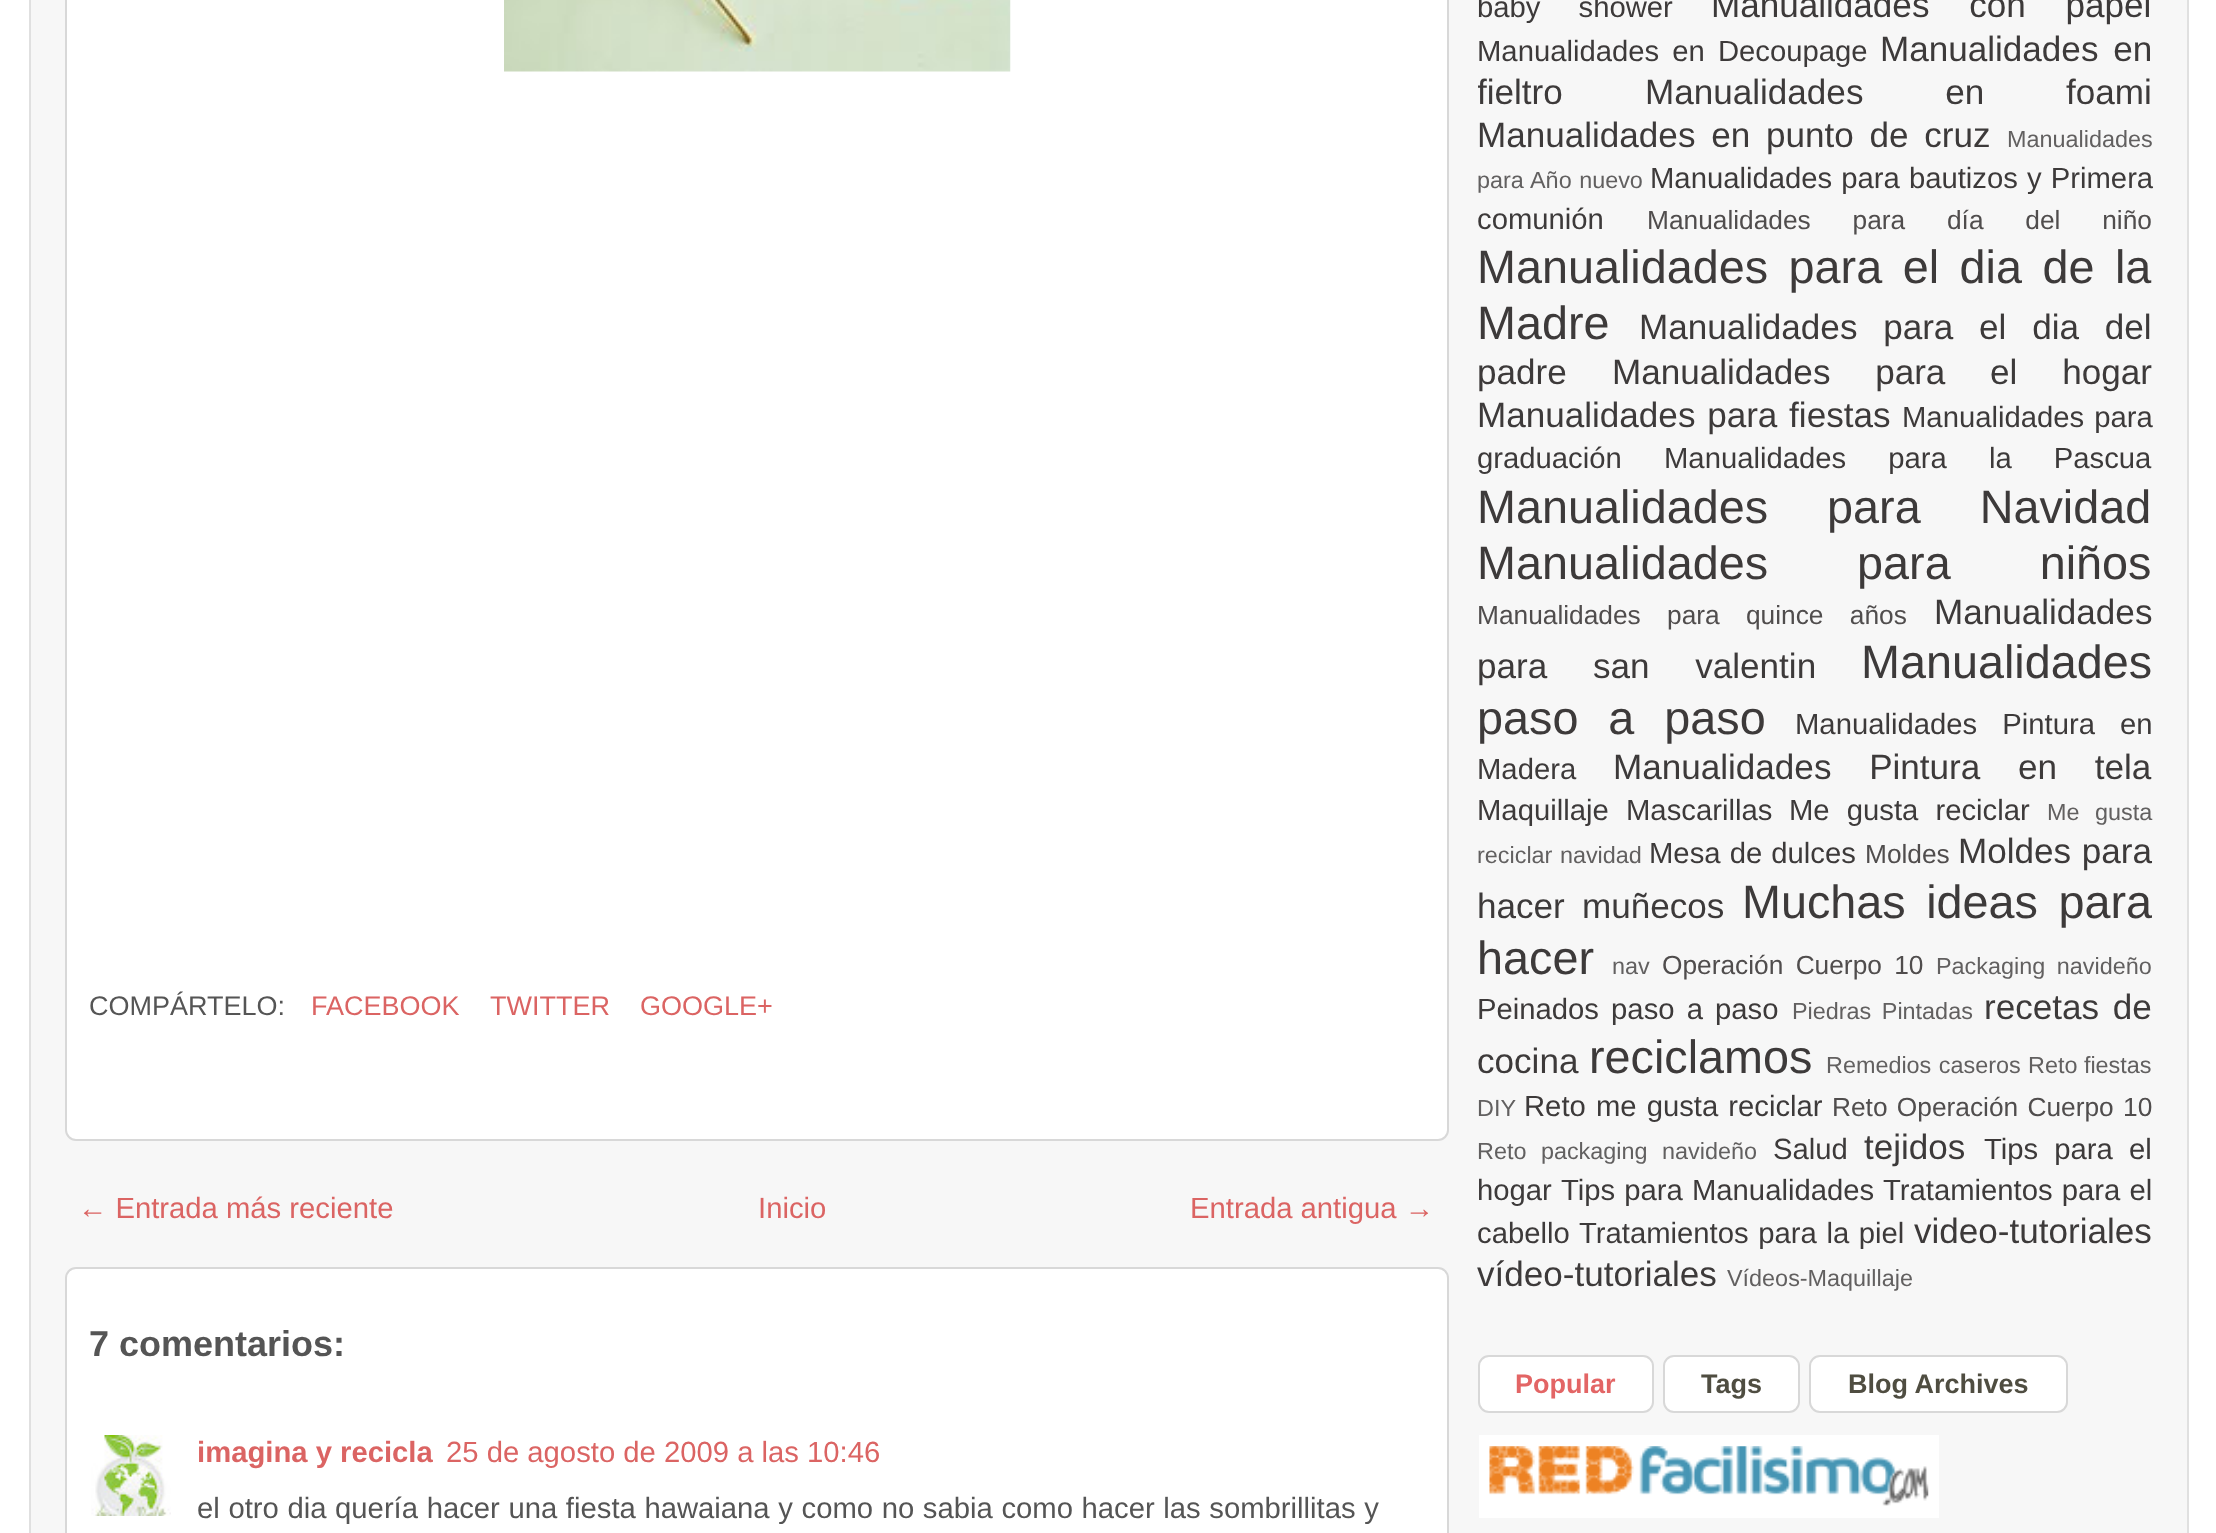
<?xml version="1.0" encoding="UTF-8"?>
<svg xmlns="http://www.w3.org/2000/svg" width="2216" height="1533">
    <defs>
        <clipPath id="clip1"><rect x="1478" y="0" width="675" height="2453"/></clipPath>
    </defs>
    <rect width="100%" height="100%" fill="#FFFFFF"/>
    <rect x="30" y="-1" width="2158" height="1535" fill="#F7F7F7" stroke="#E0E0E0" stroke-width="2"/>
    <rect x="66" y="-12" width="1382" height="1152" rx="10" fill="#FFFFFF" stroke="#D8D8D8" stroke-width="2"/>
    <image x="504" y="0" width="507" height="72" href="img_01.png"/>
    <text x="89" y="1015" font-family="Liberation Sans" font-size="27" fill="#555555">COMPÁRTELO:</text>
    <text x="311" y="1015" font-family="Liberation Sans" font-size="27" fill="#DB6463">FACEBOOK</text>
    <text x="490" y="1015" font-family="Liberation Sans" font-size="27" fill="#DB6463">TWITTER</text>
    <text x="640" y="1015" font-family="Liberation Sans" font-size="27" fill="#DB6463">GOOGLE+</text>
    <text x="78" y="1218" font-family="Liberation Sans" font-size="29.25" fill="#DB6463">← Entrada más reciente</text>
    <text x="758" y="1218" font-family="Liberation Sans" font-size="29.25" fill="#DB6463">Inicio</text>
    <text x="1190" y="1218" font-family="Liberation Sans" font-size="29.25" fill="#DB6463">Entrada antigua →</text>
    <rect x="66" y="1268" width="1382" height="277" rx="10" fill="#FFFFFF" stroke="#D8D8D8" stroke-width="2"/>
    <text x="89" y="1356" font-family="Liberation Sans" font-size="36" font-weight="700" fill="#555555">7 comentarios:</text>
    <image x="91" y="1435" width="80" height="81" href="img_02.png"/>
    <text x="197" y="1462" font-family="Liberation Sans" font-size="29.25" font-weight="700" fill="#DB6463">imagina y recicla</text>
    <text x="446" y="1462" font-family="Liberation Sans" font-size="29.25" fill="#DB6463">25 de agosto de 2009 a las 10:46</text>
    <text x="197" y="1518" word-spacing="0.5" font-family="Liberation Sans" font-size="29.25" fill="#555555">el otro dia quería hacer una fiesta hawaiana y como no sabia como hacer las sombrillitas y</text>
    <text x="1477" y="17" word-spacing="30" font-family="Liberation Sans" font-size="29.25" fill="#3D3A3A">baby shower</text>
    <text x="1711" y="17" word-spacing="30" font-family="Liberation Sans" font-size="35.1" fill="#3D3A3A">Manualidades con papel</text>
    <text x="1477" y="61" word-spacing="5" font-family="Liberation Sans" font-size="29.25" fill="#3D3A3A">Manualidades en Decoupage</text>
    <text x="1880" y="61" word-spacing="5" font-family="Liberation Sans" font-size="35.1" fill="#3D3A3A">Manualidades en</text>
    <g clip-path="url(#clip1)">
        <text x="1477" y="104" font-family="Liberation Sans" font-size="35.1" fill="#3D3A3A">fieltro</text>
    </g>
    <text x="1645" y="104" word-spacing="72" font-family="Liberation Sans" font-size="35.1" fill="#3D3A3A">Manualidades en foami</text>
    <text x="1477" y="147" word-spacing="6" font-family="Liberation Sans" font-size="35.1" fill="#3D3A3A">Manualidades en punto de cruz</text>
    <text x="2007" y="147" font-family="Liberation Sans" font-size="23.4" fill="#626060">Manualidades</text>
    <text x="1477" y="188" word-spacing="1" font-family="Liberation Sans" font-size="23.4" fill="#626060">para Año nuevo</text>
    <text x="1650" y="188" word-spacing="1" font-family="Liberation Sans" font-size="29.25" fill="#3D3A3A">Manualidades para bautizos y Primera</text>
    <text x="1477" y="229" font-family="Liberation Sans" font-size="29.25" fill="#3D3A3A">comunión</text>
    <text x="1647" y="229" word-spacing="34.5" font-family="Liberation Sans" font-size="26.3" fill="#504D4D">Manualidades para día del niño</text>
    <text font-family="Liberation Sans" font-size="46.75" fill="#3D3A3A">
        <tspan x="1477" y="283" word-spacing="7.5">Manualidades para el dia de la</tspan>
        <tspan x="1477" y="339">Madre</tspan>
    </text>
    <text x="1639" y="339" word-spacing="16" font-family="Liberation Sans" font-size="35.1" fill="#3D3A3A">Manualidades para el dia del</text>
    <text x="1477" y="384" font-family="Liberation Sans" font-size="35.1" fill="#3D3A3A">padre</text>
    <text x="1612" y="384" word-spacing="35" font-family="Liberation Sans" font-size="35.1" fill="#3D3A3A">Manualidades para el hogar</text>
    <text x="1477" y="427" word-spacing="2" font-family="Liberation Sans" font-size="35.1" fill="#3D3A3A">Manualidades para fiestas</text>
    <text x="1902" y="427" word-spacing="2" font-family="Liberation Sans" font-size="29.25" fill="#3D3A3A">Manualidades para</text>
    <text x="1477" y="468" font-family="Liberation Sans" font-size="29.25" fill="#3D3A3A">graduación</text>
    <text x="1664" y="468" word-spacing="34" font-family="Liberation Sans" font-size="29.25" fill="#3D3A3A">Manualidades para la Pascua</text>
    <text font-family="Liberation Sans" font-size="46.75" fill="#3D3A3A">
        <tspan x="1477" y="523" word-spacing="46">Manualidades para Navidad</tspan>
        <tspan x="1477" y="579" word-spacing="76">Manualidades para niños</tspan>
    </text>
    <text x="1477" y="624" word-spacing="19" font-family="Liberation Sans" font-size="26.3" fill="#504D4D">Manualidades para quince años</text>
    <text x="1934" y="624" font-family="Liberation Sans" font-size="35.1" fill="#3D3A3A">Manualidades</text>
    <text x="1477" y="678" word-spacing="36" font-family="Liberation Sans" font-size="35.1" fill="#3D3A3A">para san valentin</text>
    <text x="1861" y="678" font-family="Liberation Sans" font-size="46.75" fill="#3D3A3A">Manualidades</text>
    <text x="1477" y="734" word-spacing="17" font-family="Liberation Sans" font-size="46.75" fill="#3D3A3A">paso a paso</text>
    <text x="1795" y="734" word-spacing="17" font-family="Liberation Sans" font-size="29.25" fill="#3D3A3A">Manualidades Pintura en</text>
    <text x="1477" y="779" font-family="Liberation Sans" font-size="29.25" fill="#3D3A3A">Madera</text>
    <text x="1613" y="779" word-spacing="28" font-family="Liberation Sans" font-size="35.1" fill="#3D3A3A">Manualidades Pintura en tela</text>
    <text x="1477" y="820" font-family="Liberation Sans" font-size="29.25" fill="#3D3A3A">Maquillaje</text>
    <text x="1626" y="820" font-family="Liberation Sans" font-size="29.25" fill="#3D3A3A">Mascarillas</text>
    <text x="1789" y="820" word-spacing="9" font-family="Liberation Sans" font-size="29.25" fill="#3D3A3A">Me gusta reciclar</text>
    <text x="2047" y="820" word-spacing="9" font-family="Liberation Sans" font-size="23.4" fill="#626060">Me gusta</text>
    <text x="1477" y="863" word-spacing="1" font-family="Liberation Sans" font-size="23.4" fill="#626060">reciclar navidad</text>
    <text x="1649" y="863" word-spacing="1" font-family="Liberation Sans" font-size="29.25" fill="#3D3A3A">Mesa de dulces</text>
    <text x="1865" y="863" font-family="Liberation Sans" font-size="26.3" fill="#504D4D">Moldes</text>
    <text x="1958" y="863" word-spacing="1" font-family="Liberation Sans" font-size="35.1" fill="#3D3A3A">Moldes para</text>
    <text x="1477" y="918" word-spacing="7.5" font-family="Liberation Sans" font-size="35.1" fill="#3D3A3A">hacer muñecos</text>
    <text x="1742" y="918" word-spacing="7.5" font-family="Liberation Sans" font-size="46.75" fill="#3D3A3A">Muchas ideas para</text>
    <text x="1477" y="974" font-family="Liberation Sans" font-size="46.75" fill="#3D3A3A">hacer</text>
    <text x="1612" y="974" font-family="Liberation Sans" font-size="23.4" fill="#626060">nav</text>
    <text x="1662" y="974" word-spacing="5" font-family="Liberation Sans" font-size="26.3" fill="#504D4D">Operación Cuerpo 10</text>
    <text x="1936" y="974" word-spacing="5" font-family="Liberation Sans" font-size="23.4" fill="#626060">Packaging navideño</text>
    <text x="1477" y="1019" word-spacing="4" font-family="Liberation Sans" font-size="29.25" fill="#3D3A3A">Peinados paso a paso</text>
    <text x="1792" y="1019" word-spacing="4" font-family="Liberation Sans" font-size="23.4" fill="#626060">Piedras Pintadas</text>
    <text x="1984" y="1019" word-spacing="4" font-family="Liberation Sans" font-size="35.1" fill="#3D3A3A">recetas de</text>
    <text x="1477" y="1073" font-family="Liberation Sans" font-size="35.1" fill="#3D3A3A">cocina</text>
    <text x="1589" y="1073" font-family="Liberation Sans" font-size="46.75" fill="#3D3A3A">reciclamos</text>
    <text x="1826" y="1073" word-spacing="1" font-family="Liberation Sans" font-size="23.4" fill="#626060">Remedios caseros</text>
    <text x="2028" y="1073" font-family="Liberation Sans" font-size="23.4" fill="#626060">Reto fiestas</text>
    <text x="1477" y="1116" font-family="Liberation Sans" font-size="23.4" fill="#626060">DIY</text>
    <text x="1524" y="1116" word-spacing="2" font-family="Liberation Sans" font-size="29.25" fill="#3D3A3A">Reto me gusta reciclar</text>
    <text x="1832" y="1116" word-spacing="2" font-family="Liberation Sans" font-size="26.3" fill="#504D4D">Reto Operación Cuerpo 10</text>
    <text x="1477" y="1159" word-spacing="8" font-family="Liberation Sans" font-size="23.4" fill="#626060">Reto packaging navideño</text>
    <text x="1773" y="1159" font-family="Liberation Sans" font-size="29.25" fill="#3D3A3A">Salud</text>
    <text x="1864" y="1159" font-family="Liberation Sans" font-size="35.1" fill="#3D3A3A">tejidos</text>
    <text x="1984" y="1159" word-spacing="8" font-family="Liberation Sans" font-size="29.25" fill="#3D3A3A">Tips para el</text>
    <text x="1477" y="1200" font-family="Liberation Sans" font-size="29.25" fill="#3D3A3A">hogar</text>
    <text x="1561" y="1200" word-spacing="1" font-family="Liberation Sans" font-size="29.25" fill="#3D3A3A">Tips para Manualidades</text>
    <text x="1883" y="1200" word-spacing="1" font-family="Liberation Sans" font-size="29.25" fill="#3D3A3A">Tratamientos para el</text>
    <text x="1477" y="1243" font-family="Liberation Sans" font-size="29.25" fill="#3D3A3A">cabello</text>
    <text x="1579" y="1243" word-spacing="1.5" font-family="Liberation Sans" font-size="29.25" fill="#3D3A3A">Tratamientos para la piel</text>
    <text x="1914" y="1243" font-family="Liberation Sans" font-size="35.1" fill="#3D3A3A">video-tutoriales</text>
    <text x="1477" y="1286" font-family="Liberation Sans" font-size="35.1" fill="#3D3A3A">vídeo-tutoriales</text>
    <text x="1727" y="1286" font-family="Liberation Sans" font-size="23.4" fill="#626060">Vídeos-Maquillaje</text>
    <rect x="1479" y="1356" width="174" height="56" rx="10" fill="#FFFFFF" stroke="#D8D8D8" stroke-width="2"/>
    <text x="1515" y="1393" font-family="Liberation Sans" font-size="27" font-weight="700" fill="#E36565">Popular</text>
    <rect x="1664" y="1356" width="135" height="56" rx="10" fill="#FFFFFF" stroke="#D8D8D8" stroke-width="2"/>
    <text x="1701" y="1393" font-family="Liberation Sans" font-size="27" font-weight="700" fill="#4F4D41">Tags</text>
    <rect x="1810" y="1356" width="257" height="56" rx="10" fill="#FFFFFF" stroke="#D8D8D8" stroke-width="2"/>
    <text x="1848" y="1393" font-family="Liberation Sans" font-size="27" font-weight="700" fill="#4F4D41">Blog Archives</text>
    <image x="1479" y="1435" width="460" height="83" href="img_03.png"/>
</svg>
